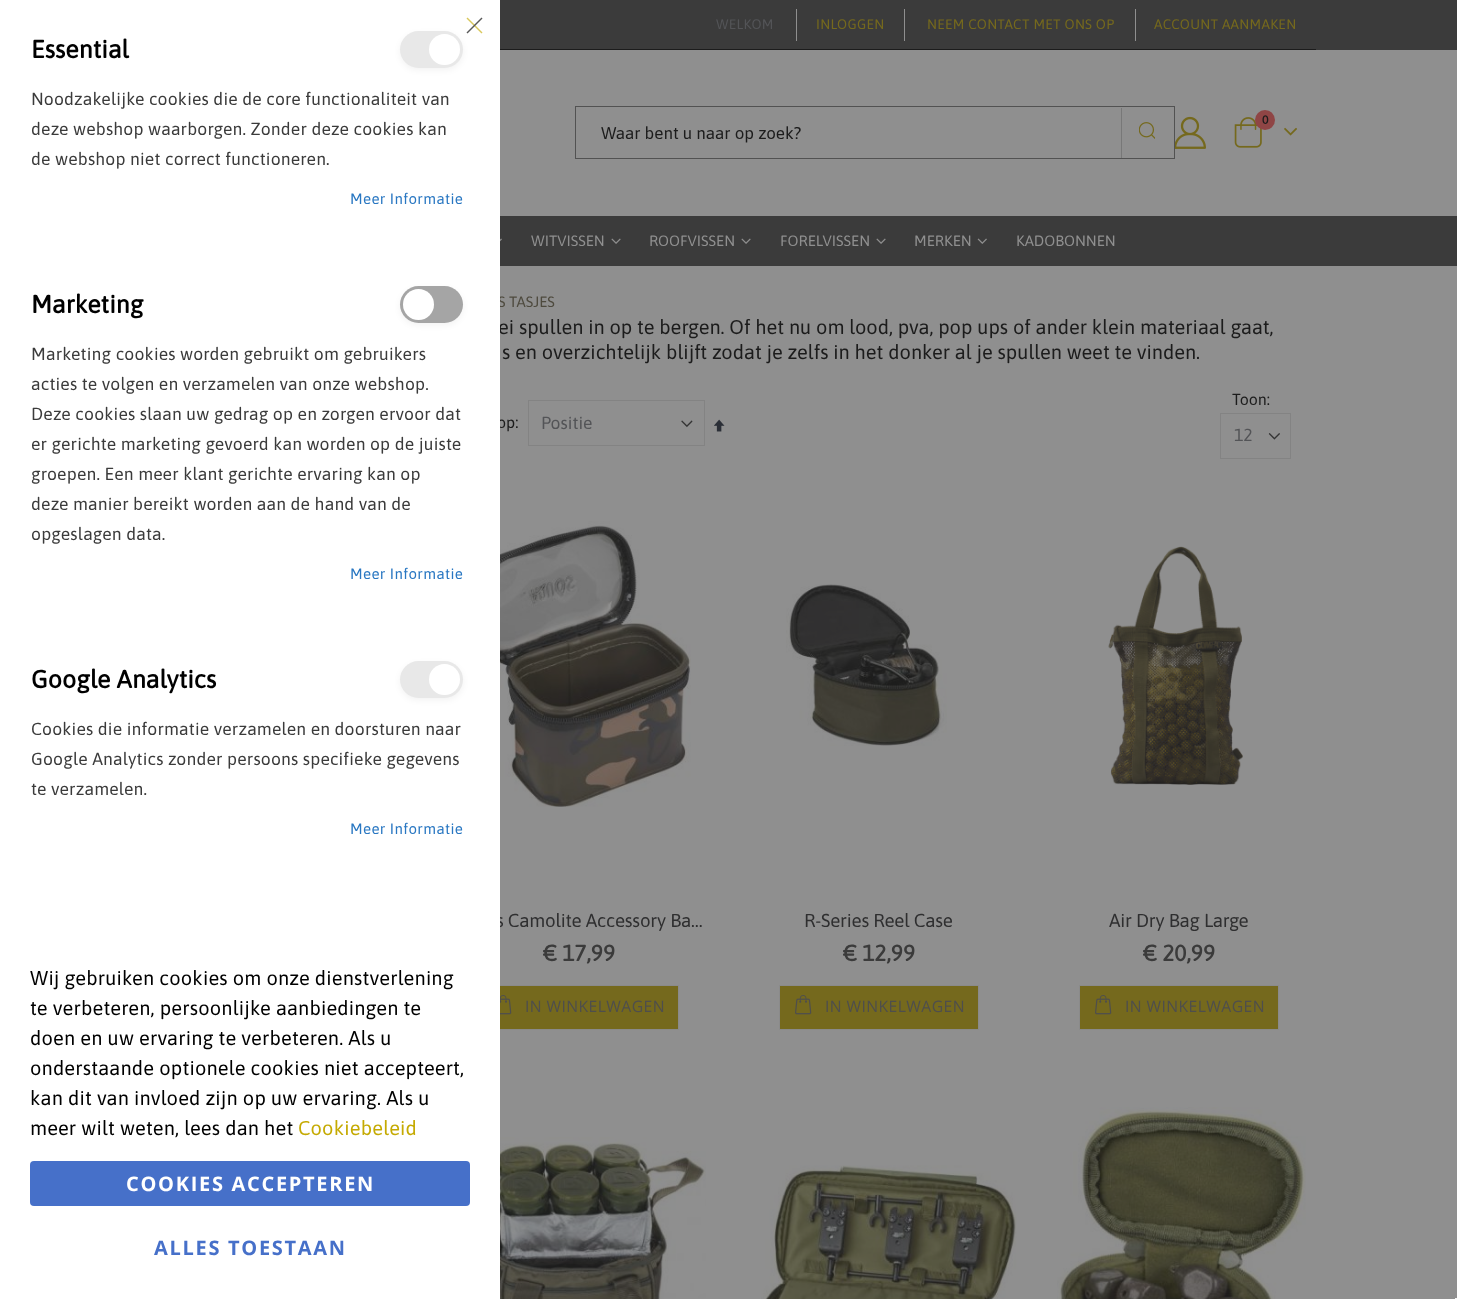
<?xml version="1.0" encoding="UTF-8"?>
<svg xmlns="http://www.w3.org/2000/svg" width="1457" height="1299">
    <defs>
        <filter id="blur1" x="-50%" y="-200%" width="200%" height="500%"><feGaussianBlur stdDeviation="3"/></filter>
    </defs>
    <rect width="100%" height="100%" fill="#8F8F8F"/>
    <text x="498" y="307" font-family="Asap" font-size="15" fill="#4E4A3E">S TASJES</text>
    <text x="498" y="334" font-family="Asap" font-size="20" fill="#1C1C1C">ei spullen in op te bergen. Of het nu om lood, pva, pop ups of ander klein materiaal gaat,</text>
    <text x="497" y="428" font-family="Asap" font-size="16" fill="#1C1C1C">op:</text>
    <text x="496" y="927" font-family="Asap" font-size="18.75" letter-spacing="-0.2" fill="#2F2F30">s Camolite Accessory Ba…</text>
    <rect x="500" y="986" width="178" height="43" fill="#75691D"/>
    <rect x="479.5" y="985.5" width="199" height="44" fill="none" stroke="#8A8A8A"/>
    <rect x="0" y="0" width="500" height="1299" fill="#FFFFFF"/>
    <rect x="400" y="34" width="63" height="36" rx="18" fill="#000000" fill-opacity="0.05" filter="url(#blur1)"/>
    <path d="M 467.5 17.5 L 482.5 32.5 L 481.5 33.5 L 466.5 18.5 Z" fill="#D9C85B"/>
    <path d="M 481.5 17.5 L 482.5 18.5 L 467.5 33.5 L 466.5 32.5 Z" fill="#595959"/>
    <text x="31" y="58" font-family="Asap" font-size="25" font-weight="700" fill="#000000">Essential</text>
    <rect x="400" y="31" width="63" height="37" rx="18.5" fill="#E8E8E8"/>
    <circle cx="444.5" cy="49.5" r="15.5" fill="#FFFFFF"/>
    <text font-family="Asap" font-size="17.5" letter-spacing="0.18" fill="#3B3B3B">
        <tspan x="31" y="105">Noodzakelijke cookies die de core functionaliteit van</tspan>
        <tspan x="31" y="135">deze webshop waarborgen. Zonder deze cookies kan</tspan>
        <tspan x="31" y="165">de webshop niet correct functioneren.</tspan>
    </text>
    <text x="350" y="204" font-family="Asap" font-size="15" letter-spacing="0.4" fill="#2977C2">Meer Informatie</text>
    <text x="31" y="313" font-family="Asap" font-size="25" font-weight="700" fill="#000000">Marketing</text>
    <rect x="400" y="289" width="63" height="36" rx="18" fill="#000000" fill-opacity="0.05" filter="url(#blur1)"/>
    <rect x="400" y="286" width="63" height="37" rx="18.5" fill="#A5A5A5"/>
    <circle cx="418.5" cy="304.5" r="15.5" fill="#FFFFFF"/>
    <text font-family="Asap" font-size="17.5" letter-spacing="0.18" fill="#3B3B3B">
        <tspan x="31" y="360">Marketing cookies worden gebruikt om gebruikers</tspan>
        <tspan x="31" y="390">acties te volgen en verzamelen van onze webshop.</tspan>
        <tspan x="31" y="420">Deze cookies slaan uw gedrag op en zorgen ervoor dat</tspan>
        <tspan x="31" y="450">er gerichte marketing gevoerd kan worden op de juiste</tspan>
        <tspan x="31" y="480">groepen. Een meer klant gerichte ervaring kan op</tspan>
        <tspan x="31" y="510">deze manier bereikt worden aan de hand van de</tspan>
        <tspan x="31" y="540">opgeslagen data.</tspan>
    </text>
    <text x="350" y="579" font-family="Asap" font-size="15" letter-spacing="0.4" fill="#2977C2">Meer Informatie</text>
    <text x="31" y="688" font-family="Asap" font-size="25" font-weight="700" fill="#000000">Google Analytics</text>
    <rect x="400" y="664" width="63" height="36" rx="18" fill="#000000" fill-opacity="0.05" filter="url(#blur1)"/>
    <rect x="400" y="661" width="63" height="37" rx="18.5" fill="#E8E8E8"/>
    <circle cx="444.5" cy="679.5" r="15.5" fill="#FFFFFF"/>
    <text font-family="Asap" font-size="17.5" letter-spacing="0.18" fill="#3B3B3B">
        <tspan x="31" y="735">Cookies die informatie verzamelen en doorsturen naar</tspan>
        <tspan x="31" y="765">Google Analytics zonder persoons specifieke gegevens</tspan>
        <tspan x="31" y="795">te verzamelen.</tspan>
    </text>
    <text x="350" y="834" font-family="Asap" font-size="15" letter-spacing="0.4" fill="#2977C2">Meer Informatie</text>
    <text font-family="Asap" font-size="20" letter-spacing="0.18" fill="#000000">
        <tspan x="30" y="985">Wij gebruiken cookies om onze dienstverlening</tspan>
        <tspan x="30" y="1015">te verbeteren, persoonlijke aanbiedingen te</tspan>
        <tspan x="30" y="1045">doen en uw ervaring te verbeteren. Als u</tspan>
        <tspan x="30" y="1075">onderstaande optionele cookies niet accepteert,</tspan>
        <tspan x="30" y="1105">kan dit van invloed zijn op uw ervaring. Als u</tspan>
        <tspan x="30" y="1135">meer wilt weten, lees dan het</tspan>
    </text>
    <text x="298" y="1135" font-family="Asap" font-size="20" letter-spacing="0.18" fill="#C5AA02">Cookiebeleid</text>
    <rect x="30" y="1161" width="440" height="45" rx="4" fill="#4670C9"/>
    <text x="126" y="1191" font-family="Open Sans" font-size="20" font-weight="700" letter-spacing="1.7" fill="#FFFFFF">COOKIES ACCEPTEREN</text>
    <text x="154" y="1255" font-family="Open Sans" font-size="20" font-weight="700" letter-spacing="1.7" fill="#4670C9">ALLES TOESTAAN</text>
    <rect x="500" y="0" width="957" height="50" fill="#3B3B3B"/>
    <rect x="500" y="49" width="816" height="1" fill="#1C1C1C"/>
    <text x="716" y="29" font-family="Asap" font-size="13.75" letter-spacing="0.3" fill="#535457">WELKOM</text>
    <rect x="904" y="9" width="1" height="32" fill="#8F8F8F"/>
    <rect x="796" y="9" width="1" height="32" fill="#8F8F8F"/>
    <text x="816" y="29" font-family="Asap" font-size="13.75" letter-spacing="0.3" fill="#75691D">INLOGGEN</text>
    <rect x="1135" y="9" width="1" height="32" fill="#8F8F8F"/>
    <text x="927" y="29" font-family="Asap" font-size="13.75" letter-spacing="0.3" fill="#75691D">NEEM CONTACT MET ONS OP</text>
    <text x="1154" y="29" font-family="Asap" font-size="13.75" letter-spacing="0.3" fill="#75691D">ACCOUNT AANMAKEN</text>
    <image x="1175" y="116" width="31" height="33" href="img_01.png"/>
    <image x="1234" y="117" width="28" height="31" href="img_02.png"/>
    <circle cx="1265" cy="120" r="10" fill="#8F4545"/>
    <text x="1262" y="124" font-family="Asap" font-size="12" font-weight="700" fill="#1C1C1C">0</text>
    <image x="1284" y="127" width="13" height="9" href="img_03.png"/>
    <rect x="575.5" y="106.5" width="599" height="52" fill="none" stroke="#525252"/>
    <text x="601" y="139" font-family="Asap" font-size="17" fill="#1C1C1C">Waar bent u naar op zoek?</text>
    <rect x="1121" y="108" width="1" height="50" fill="#787878"/>
    <image x="1139" y="122" width="16" height="17" href="img_04.png"/>
    <rect x="500" y="216" width="957" height="50" fill="#3B3B3B"/>
    <image x="500" y="238" width="2" height="4" href="img_05.png"/>
    <text x="531" y="246" font-family="Asap" font-size="15" fill="#8F8F8F">WITVISSEN</text>
    <image x="611" y="238" width="10" height="6" href="img_06.png"/>
    <text x="649" y="246" font-family="Asap" font-size="15" fill="#8F8F8F">ROOFVISSEN</text>
    <image x="741" y="238" width="10" height="6" href="img_06.png"/>
    <text x="780" y="246" font-family="Asap" font-size="15" fill="#8F8F8F">FORELVISSEN</text>
    <image x="876" y="238" width="10" height="6" href="img_06.png"/>
    <text x="914" y="246" font-family="Asap" font-size="15" fill="#8F8F8F">MERKEN</text>
    <image x="977" y="238" width="10" height="6" href="img_07.png"/>
    <text x="1016" y="246" font-family="Asap" font-size="15" fill="#8F8F8F">KADOBONNEN</text>
    <text x="502" y="359" font-family="Asap" font-size="20" fill="#1C1C1C">s en overzichtelijk blijft zodat je zelfs in het donker al je spullen weet te vinden.</text>
    <image x="681" y="420" width="12" height="8" href="img_08.png"/>
    <rect x="528.5" y="400.5" width="176" height="45" fill="none" stroke="#838383"/>
    <text x="541" y="429" font-family="Asap" font-size="17.5" fill="#535457">Positie</text>
    <image x="714" y="419" width="11" height="13" href="img_09.png"/>
    <text x="1232" y="405" font-family="Asap" font-size="16" fill="#1C1C1C">Toon:</text>
    <image x="1268" y="433" width="12" height="7" href="img_10.png"/>
    <rect x="1220.5" y="413.5" width="70" height="45" fill="none" stroke="#838383"/>
    <text x="1234" y="441" font-family="Asap" font-size="17.5" fill="#535457">12</text>
    <image x="500" y="521" width="191" height="286" href="img_11.png"/>
    <text x="543" y="961" font-family="Asap" font-size="22.5" font-weight="700" fill="#3B3B3B">€ 17,99</text>
    <image x="500" y="995" width="12" height="20" href="img_12.png"/>
    <text x="525" y="1012" font-family="Open Sans" font-size="15.75" letter-spacing="0.4" fill="#4E4E4D">IN WINKELWAGEN</text>
    <image x="786" y="584" width="161" height="162" href="img_13.png"/>
    <text x="804" y="927" font-family="Asap" font-size="18.75" letter-spacing="-0.2" fill="#2F2F30">R-Series Reel Case</text>
    <text x="843" y="961" font-family="Asap" font-size="22.5" font-weight="700" fill="#3B3B3B">€ 12,99</text>
    <rect x="779.5" y="985.5" width="199" height="44" fill="#75691D" stroke="#8A8A8A"/>
    <image x="795" y="995" width="17" height="20" href="img_14.png"/>
    <text x="825" y="1012" font-family="Open Sans" font-size="15.75" letter-spacing="0.4" fill="#4E4E4D">IN WINKELWAGEN</text>
    <image x="1108" y="546" width="135" height="239" href="img_15.png"/>
    <text x="1109" y="927" font-family="Asap" font-size="18.75" letter-spacing="-0.2" fill="#2F2F30">Air Dry Bag Large</text>
    <text x="1143" y="961" font-family="Asap" font-size="22.5" font-weight="700" fill="#3B3B3B">€ 20,99</text>
    <rect x="1079.5" y="985.5" width="199" height="44" fill="#75691D" stroke="#8A8A8A"/>
    <image x="1095" y="995" width="17" height="20" href="img_14.png"/>
    <text x="1125" y="1012" font-family="Open Sans" font-size="15.75" letter-spacing="0.4" fill="#4E4E4D">IN WINKELWAGEN</text>
    <image x="500" y="1137" width="206" height="162" href="img_16.png"/>
    <image x="761" y="1165" width="256" height="134" href="img_17.png"/>
    <image x="1057" y="1107" width="249" height="192" href="img_18.png"/>
    <rect x="1455" y="1298" width="2" height="1" fill="#F5F5F5"/>
</svg>
